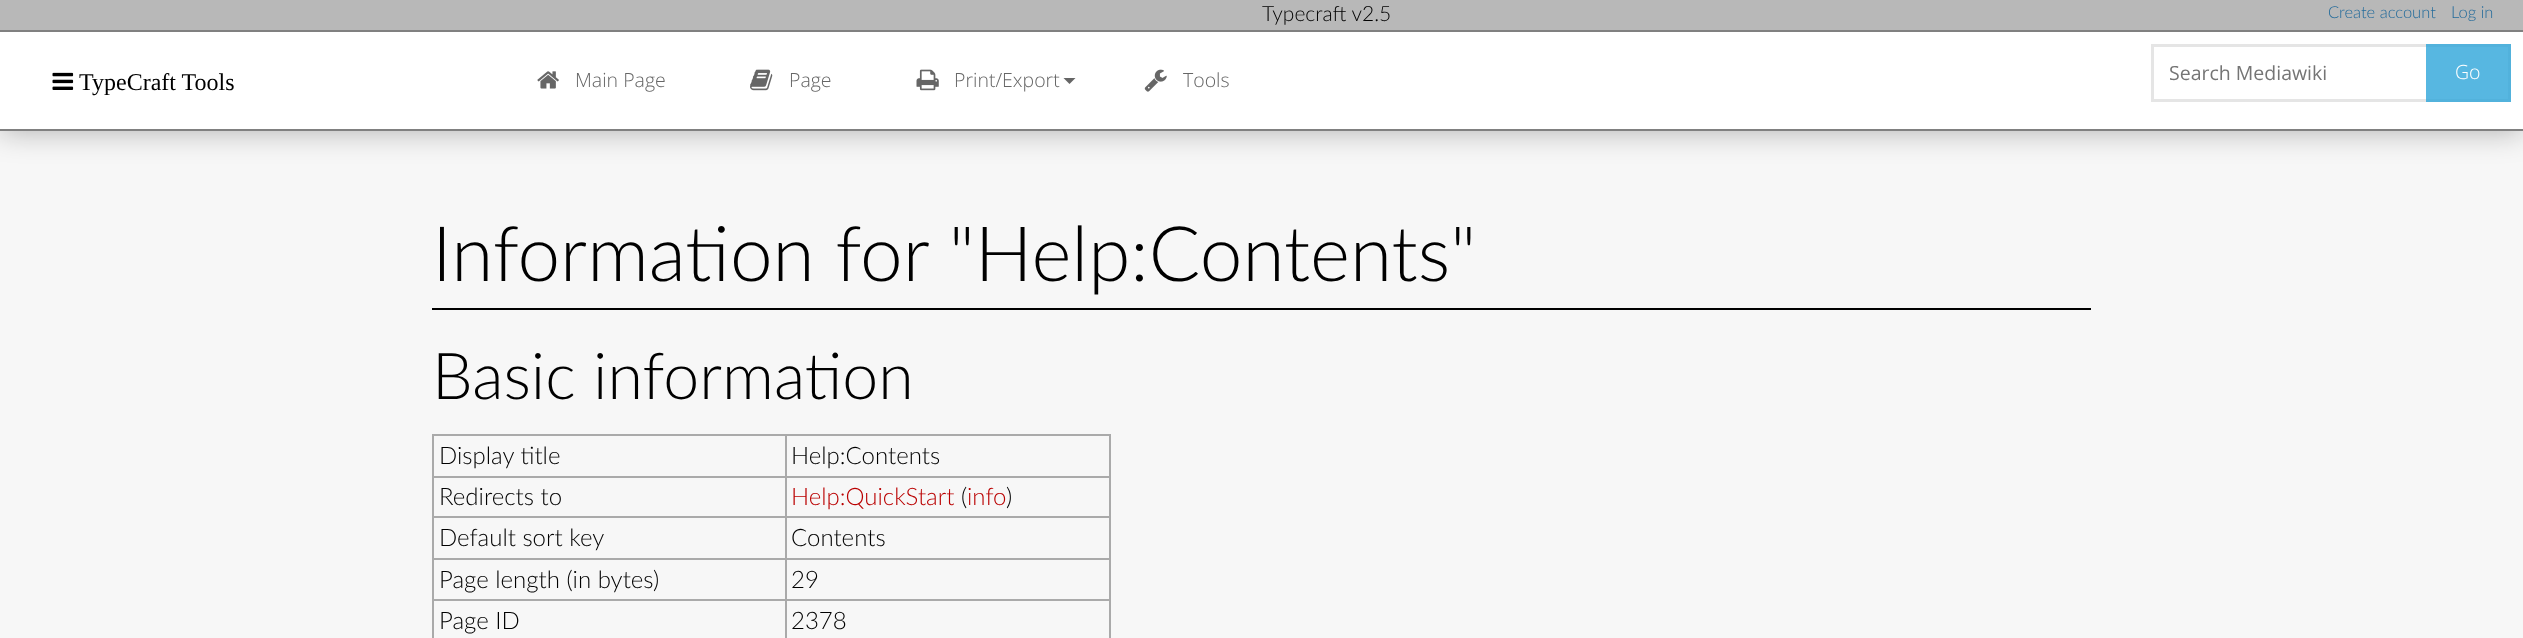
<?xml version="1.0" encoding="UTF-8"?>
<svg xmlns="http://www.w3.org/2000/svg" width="2523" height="638">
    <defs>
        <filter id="blur1" x="-50%" y="-200%" width="200%" height="500%"><feGaussianBlur stdDeviation="15"/></filter>
    </defs>
    <rect width="100%" height="100%" fill="#F7F7F7"/>
    <rect x="0" y="32" width="2523" height="99" fill="#000000" fill-opacity="0.3" filter="url(#blur1)"/>
    <rect x="0" y="0" width="2523" height="30" fill="#B8B8B8"/>
    <rect x="0" y="30" width="2523" height="2" fill="#808080"/>
    <text x="1262" y="21" font-family="Lato" font-size="21" font-weight="300" fill="#000000">Typecraft v2.5</text>
    <text x="2328" y="18" font-family="Lato" font-size="16.5" font-weight="300" fill="#236B9B">Create account</text>
    <text x="2451" y="18" font-family="Lato" font-size="16.5" font-weight="300" fill="#236B9B">Log in</text>
    <rect x="0" y="32" width="2523" height="97" fill="#FFFFFF"/>
    <image x="52" y="72" width="22" height="18" href="img_01.png"/>
    <text x="79" y="90" font-family="Liberation Serif" font-size="24" fill="#000000">TypeCraft Tools</text>
    <rect x="0" y="129" width="2523" height="2" fill="#808080"/>
    <image x="537" y="71" width="22" height="18" href="img_02.png"/>
    <text x="575" y="87" font-family="Open Sans" font-size="19.5" font-weight="300" fill="#666666">Main Page</text>
    <image x="750" y="69" width="23" height="22" href="img_03.png"/>
    <text x="789" y="87" font-family="Open Sans" font-size="19.5" font-weight="300" fill="#666666">Page</text>
    <image x="916" y="69" width="23" height="22" href="img_04.png"/>
    <text x="954" y="87" font-family="Open Sans" font-size="19.5" font-weight="300" fill="#666666">Print/Export</text>
    <path d="M 1063.5 78 H 1075.5 L 1069.5 84 Z" fill="#666666"/>
    <image x="1144" y="69" width="23" height="23" href="img_05.png"/>
    <text x="1183" y="87" font-family="Open Sans" font-size="19.5" font-weight="300" fill="#666666">Tools</text>
    <rect x="2152.5" y="45.5" width="357" height="55" fill="none" stroke="#E5E5E5" stroke-width="3"/>
    <text x="2169" y="80" font-family="Open Sans" font-size="19.5" fill="#757575">Search Mediawiki</text>
    <rect x="2426" y="44" width="85" height="58" fill="#2DA5DA" fill-opacity="0.8"/>
    <text x="2455" y="79" font-family="Open Sans" font-size="19.5" font-weight="300" fill="#FFFFFF">Go</text>
    <rect x="432" y="308" width="1659" height="2" fill="#000000"/>
    <text x="432" y="281" font-family="Lato" font-size="76.5" font-weight="300" fill="#000000">Information for "Help:Contents"</text>
    <text x="432" y="399" font-family="Lato" font-size="64.5" font-weight="300" fill="#000000">Basic information</text>
    <rect x="432" y="434" width="678" height="2" fill="#AAAAAA"/>
    <rect x="1109" y="434" width="2" height="204" fill="#AAAAAA"/>
    <rect x="432" y="434" width="2" height="204" fill="#AAAAAA"/>
    <text x="439" y="464" font-family="Lato" font-size="24" font-weight="300" fill="#000000">Display title</text>
    <rect x="785" y="476" width="325" height="2" fill="#AAAAAA"/>
    <rect x="785" y="516" width="325" height="2" fill="#AAAAAA"/>
    <rect x="785" y="558" width="325" height="2" fill="#AAAAAA"/>
    <rect x="785" y="599" width="325" height="2" fill="#AAAAAA"/>
    <rect x="785" y="599" width="2" height="39" fill="#AAAAAA"/>
    <rect x="432" y="599" width="354" height="2" fill="#AAAAAA"/>
    <rect x="785" y="558" width="2" height="42" fill="#AAAAAA"/>
    <rect x="432" y="558" width="354" height="2" fill="#AAAAAA"/>
    <rect x="785" y="516" width="2" height="44" fill="#AAAAAA"/>
    <rect x="432" y="516" width="354" height="2" fill="#AAAAAA"/>
    <rect x="785" y="476" width="2" height="42" fill="#AAAAAA"/>
    <rect x="432" y="476" width="354" height="2" fill="#AAAAAA"/>
    <rect x="785" y="434" width="2" height="43" fill="#AAAAAA"/>
    <text x="791" y="464" font-family="Lato" font-size="24" font-weight="300" fill="#000000">Help:Contents</text>
    <text x="439" y="505" font-family="Lato" font-size="24" font-weight="300" fill="#000000">Redirects to</text>
    <text x="791" y="505" font-family="Lato" font-size="24" font-weight="300" fill="#BA0000">Help:QuickStart</text>
    <text x="961" y="505" font-family="Lato" font-size="24" font-weight="300" fill="#000000">(</text>
    <text x="967" y="505" font-family="Lato" font-size="24" font-weight="300" fill="#BA0000">info</text>
    <text x="1006" y="505" font-family="Lato" font-size="24" font-weight="300" fill="#000000">)</text>
    <text x="439" y="546" font-family="Lato" font-size="24" font-weight="300" fill="#000000">Default sort key</text>
    <text x="791" y="546" font-family="Lato" font-size="24" font-weight="300" fill="#000000">Contents</text>
    <text x="439" y="588" font-family="Lato" font-size="24" font-weight="300" fill="#000000">Page length (in bytes)</text>
    <text x="791" y="588" font-family="Lato" font-size="24" font-weight="300" fill="#000000">29</text>
    <text x="439" y="629" font-family="Lato" font-size="24" font-weight="300" fill="#000000">Page ID</text>
    <text x="791" y="629" font-family="Lato" font-size="24" font-weight="300" fill="#000000">2378</text>
</svg>
